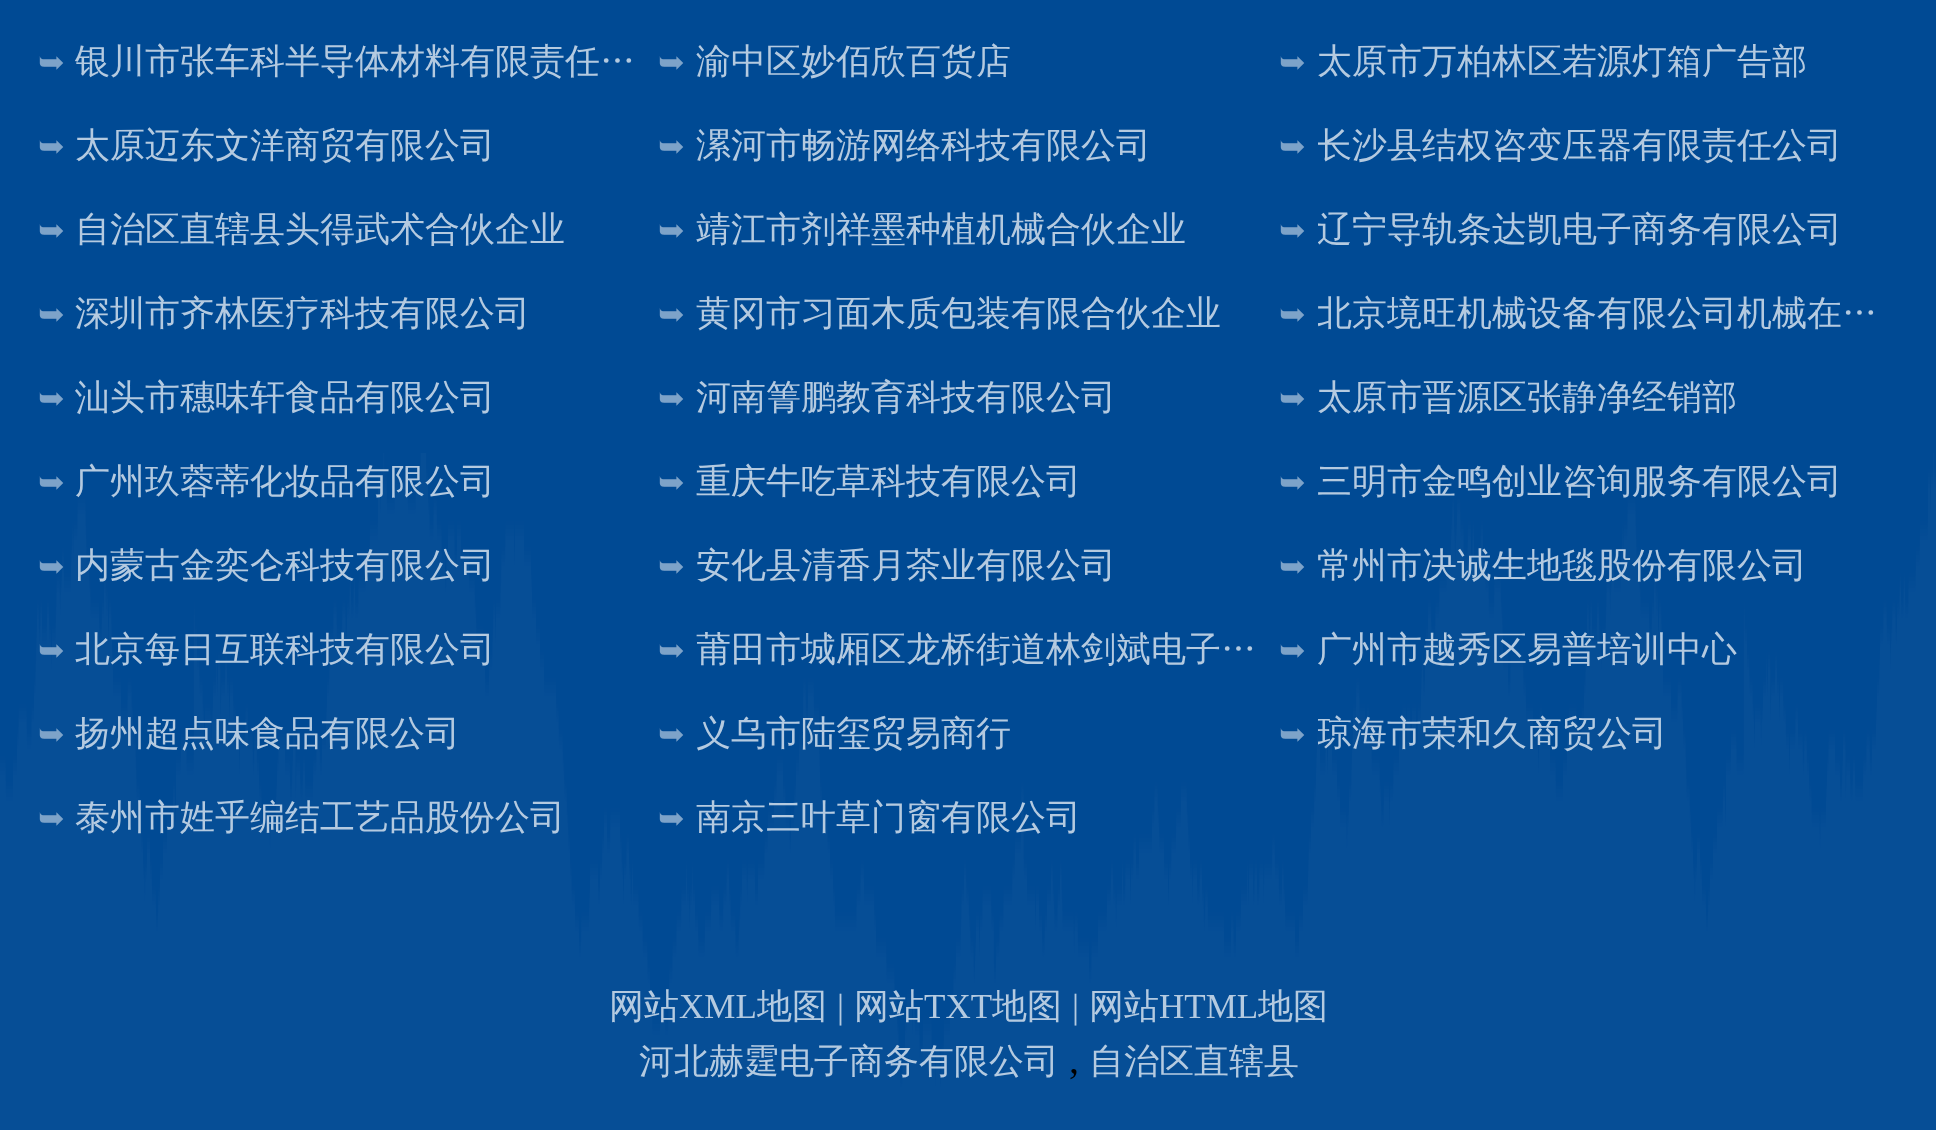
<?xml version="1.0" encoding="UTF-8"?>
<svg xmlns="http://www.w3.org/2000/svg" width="1936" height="1130">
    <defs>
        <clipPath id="clip1"><rect x="1318" y="105" width="582" height="83"/></clipPath>
        <clipPath id="clip2"><rect x="1318" y="188" width="582" height="85"/></clipPath>
        <clipPath id="clip3"><rect x="1318" y="273" width="582" height="85"/></clipPath>
        <clipPath id="clip4"><rect x="1318" y="440" width="582" height="85"/></clipPath>
        <clipPath id="clip5"><rect x="1318" y="525" width="582" height="83"/></clipPath>
        <clipPath id="clip6"><rect x="1318" y="693" width="582" height="85"/></clipPath>
    </defs>
    <rect width="100%" height="100%" fill="#004A94"/>
    <text x="38" y="73" font-family="DejaVu Sans" font-size="32" fill="#7DA3C9">➥</text>
    <text x="75" y="73" font-family="WenQuanYi Zen Hei" font-size="35" font-weight="500" fill="#B4CAE0">银川市张车科半导体材料有限责任…</text>
    <text x="658" y="73" font-family="DejaVu Sans" font-size="32" fill="#7DA3C9">➥</text>
    <text x="696" y="73" font-family="WenQuanYi Zen Hei" font-size="35" font-weight="500" fill="#B4CAE0">渝中区妙佰欣百货店</text>
    <text x="1279" y="73" font-family="DejaVu Sans" font-size="32" fill="#7DA3C9">➥</text>
    <text x="1317" y="73" font-family="WenQuanYi Zen Hei" font-size="35" font-weight="500" fill="#B4CAE0">太原市万柏林区若源灯箱广告部</text>
    <text x="38" y="157" font-family="DejaVu Sans" font-size="32" fill="#7DA3C9">➥</text>
    <text x="75" y="157" font-family="WenQuanYi Zen Hei" font-size="35" font-weight="500" fill="#B4CAE0">太原迈东文洋商贸有限公司</text>
    <text x="658" y="157" font-family="DejaVu Sans" font-size="32" fill="#7DA3C9">➥</text>
    <text x="696" y="157" font-family="WenQuanYi Zen Hei" font-size="35" font-weight="500" fill="#B4CAE0">漯河市畅游网络科技有限公司</text>
    <text x="1279" y="157" font-family="DejaVu Sans" font-size="32" fill="#7DA3C9">➥</text>
    <g clip-path="url(#clip1)">
        <text x="1317" y="157" font-family="WenQuanYi Zen Hei" font-size="35" font-weight="500" fill="#B4CAE0">长沙县结权咨变压器有限责任公司</text>
    </g>
    <text x="38" y="241" font-family="DejaVu Sans" font-size="32" fill="#7DA3C9">➥</text>
    <text x="75" y="241" font-family="WenQuanYi Zen Hei" font-size="35" font-weight="500" fill="#B4CAE0">自治区直辖县头得武术合伙企业</text>
    <text x="658" y="241" font-family="DejaVu Sans" font-size="32" fill="#7DA3C9">➥</text>
    <text x="696" y="241" font-family="WenQuanYi Zen Hei" font-size="35" font-weight="500" fill="#B4CAE0">靖江市剂祥墨种植机械合伙企业</text>
    <text x="1279" y="241" font-family="DejaVu Sans" font-size="32" fill="#7DA3C9">➥</text>
    <g clip-path="url(#clip2)">
        <text x="1317" y="241" font-family="WenQuanYi Zen Hei" font-size="35" font-weight="500" fill="#B4CAE0">辽宁导轨条达凯电子商务有限公司</text>
    </g>
    <text x="38" y="325" font-family="DejaVu Sans" font-size="32" fill="#7DA3C9">➥</text>
    <text x="75" y="325" font-family="WenQuanYi Zen Hei" font-size="35" font-weight="500" fill="#B4CAE0">深圳市齐林医疗科技有限公司</text>
    <text x="658" y="325" font-family="DejaVu Sans" font-size="32" fill="#7DA3C9">➥</text>
    <text x="696" y="325" font-family="WenQuanYi Zen Hei" font-size="35" font-weight="500" fill="#B4CAE0">黄冈市习面木质包装有限合伙企业</text>
    <text x="1279" y="325" font-family="DejaVu Sans" font-size="32" fill="#7DA3C9">➥</text>
    <g clip-path="url(#clip3)">
        <text x="1317" y="325" font-family="WenQuanYi Zen Hei" font-size="35" font-weight="500" fill="#B4CAE0">北京境旺机械设备有限公司机械在…</text>
    </g>
    <text x="38" y="409" font-family="DejaVu Sans" font-size="32" fill="#7DA3C9">➥</text>
    <text x="75" y="409" font-family="WenQuanYi Zen Hei" font-size="35" font-weight="500" fill="#B4CAE0">汕头市穗味轩食品有限公司</text>
    <text x="658" y="409" font-family="DejaVu Sans" font-size="32" fill="#7DA3C9">➥</text>
    <text x="696" y="409" font-family="WenQuanYi Zen Hei" font-size="35" font-weight="500" fill="#B4CAE0">河南箐鹏教育科技有限公司</text>
    <text x="1279" y="409" font-family="DejaVu Sans" font-size="32" fill="#7DA3C9">➥</text>
    <text x="1317" y="409" font-family="WenQuanYi Zen Hei" font-size="35" font-weight="500" fill="#B4CAE0">太原市晋源区张静净经销部</text>
    <image x="0" y="453" width="1936" height="677" href="img_01.png"/>
    <text x="38" y="493" font-family="DejaVu Sans" font-size="32" fill="#7DA3C9">➥</text>
    <text x="75" y="493" font-family="WenQuanYi Zen Hei" font-size="35" font-weight="500" fill="#B4CAE0">广州玖蓉蒂化妆品有限公司</text>
    <text x="658" y="493" font-family="DejaVu Sans" font-size="32" fill="#7DA3C9">➥</text>
    <text x="696" y="493" font-family="WenQuanYi Zen Hei" font-size="35" font-weight="500" fill="#B4CAE0">重庆牛吃草科技有限公司</text>
    <text x="1279" y="493" font-family="DejaVu Sans" font-size="32" fill="#7DA3C9">➥</text>
    <g clip-path="url(#clip4)">
        <text x="1317" y="493" font-family="WenQuanYi Zen Hei" font-size="35" font-weight="500" fill="#B4CAE0">三明市金鸣创业咨询服务有限公司</text>
    </g>
    <text x="38" y="577" font-family="DejaVu Sans" font-size="32" fill="#7DA3C9">➥</text>
    <text x="75" y="577" font-family="WenQuanYi Zen Hei" font-size="35" font-weight="500" fill="#B4CAE0">内蒙古金奕仑科技有限公司</text>
    <text x="658" y="577" font-family="DejaVu Sans" font-size="32" fill="#7DA3C9">➥</text>
    <text x="696" y="577" font-family="WenQuanYi Zen Hei" font-size="35" font-weight="500" fill="#B4CAE0">安化县清香月茶业有限公司</text>
    <text x="1279" y="577" font-family="DejaVu Sans" font-size="32" fill="#7DA3C9">➥</text>
    <g clip-path="url(#clip5)">
        <text x="1317" y="577" font-family="WenQuanYi Zen Hei" font-size="35" font-weight="500" fill="#B4CAE0">常州市决诚生地毯股份有限公司</text>
    </g>
    <text x="38" y="661" font-family="DejaVu Sans" font-size="32" fill="#7DA3C9">➥</text>
    <text x="75" y="661" font-family="WenQuanYi Zen Hei" font-size="35" font-weight="500" fill="#B4CAE0">北京每日互联科技有限公司</text>
    <text x="658" y="661" font-family="DejaVu Sans" font-size="32" fill="#7DA3C9">➥</text>
    <text x="696" y="661" font-family="WenQuanYi Zen Hei" font-size="35" font-weight="500" fill="#B4CAE0">莆田市城厢区龙桥街道林剑斌电子…</text>
    <text x="1279" y="661" font-family="DejaVu Sans" font-size="32" fill="#7DA3C9">➥</text>
    <text x="1317" y="661" font-family="WenQuanYi Zen Hei" font-size="35" font-weight="500" fill="#B4CAE0">广州市越秀区易普培训中心</text>
    <text x="38" y="745" font-family="DejaVu Sans" font-size="32" fill="#7DA3C9">➥</text>
    <text x="75" y="745" font-family="WenQuanYi Zen Hei" font-size="35" font-weight="500" fill="#B4CAE0">扬州超点味食品有限公司</text>
    <text x="658" y="745" font-family="DejaVu Sans" font-size="32" fill="#7DA3C9">➥</text>
    <text x="696" y="745" font-family="WenQuanYi Zen Hei" font-size="35" font-weight="500" fill="#B4CAE0">义乌市陆玺贸易商行</text>
    <text x="1279" y="745" font-family="DejaVu Sans" font-size="32" fill="#7DA3C9">➥</text>
    <g clip-path="url(#clip6)">
        <text x="1317" y="745" font-family="WenQuanYi Zen Hei" font-size="35" font-weight="500" fill="#B4CAE0">琼海市荣和久商贸公司</text>
    </g>
    <text x="38" y="829" font-family="DejaVu Sans" font-size="32" fill="#7DA3C9">➥</text>
    <text x="75" y="829" font-family="WenQuanYi Zen Hei" font-size="35" font-weight="500" fill="#B4CAE0">泰州市姓乎编结工艺品股份公司</text>
    <text x="658" y="829" font-family="DejaVu Sans" font-size="32" fill="#7DA3C9">➥</text>
    <text x="696" y="829" font-family="WenQuanYi Zen Hei" font-size="35" font-weight="500" fill="#B4CAE0">南京三叶草门窗有限公司</text>
    <text x="609" y="1018" font-family="WenQuanYi Zen Hei" font-size="35" font-weight="500" fill="#B4CAE0">网站</text>
    <text x="679" y="1018" font-family="Liberation Serif" font-size="35" fill="#B4CAE0">XML</text>
    <text x="757" y="1018" font-family="WenQuanYi Zen Hei" font-size="35" font-weight="500" fill="#B4CAE0">地图</text>
    <text x="837" y="1018" font-family="Liberation Serif" font-size="35" fill="#B4CAE0">|</text>
    <text x="854" y="1018" font-family="WenQuanYi Zen Hei" font-size="35" font-weight="500" fill="#B4CAE0">网站</text>
    <text x="924" y="1018" font-family="Liberation Serif" font-size="35" fill="#B4CAE0">TXT</text>
    <text x="992" y="1018" font-family="WenQuanYi Zen Hei" font-size="35" font-weight="500" fill="#B4CAE0">地图</text>
    <text x="1072" y="1018" font-family="Liberation Serif" font-size="35" fill="#B4CAE0">|</text>
    <text x="1089" y="1018" font-family="WenQuanYi Zen Hei" font-size="35" font-weight="500" fill="#B4CAE0">网站</text>
    <text x="1159" y="1018" font-family="Liberation Serif" font-size="35" fill="#B4CAE0">HTML</text>
    <text x="1258" y="1018" font-family="WenQuanYi Zen Hei" font-size="35" font-weight="500" fill="#B4CAE0">地图</text>
    <text x="639" y="1073" font-family="WenQuanYi Zen Hei" font-size="35" font-weight="500" fill="#B4CAE0">河北赫霆电子商务有限公司</text>
    <text x="1069" y="1073" font-family="Liberation Serif" font-size="40" fill="#000000">,</text>
    <text x="1089" y="1073" font-family="WenQuanYi Zen Hei" font-size="35" font-weight="500" fill="#B4CAE0">自治区直辖县</text>
</svg>
